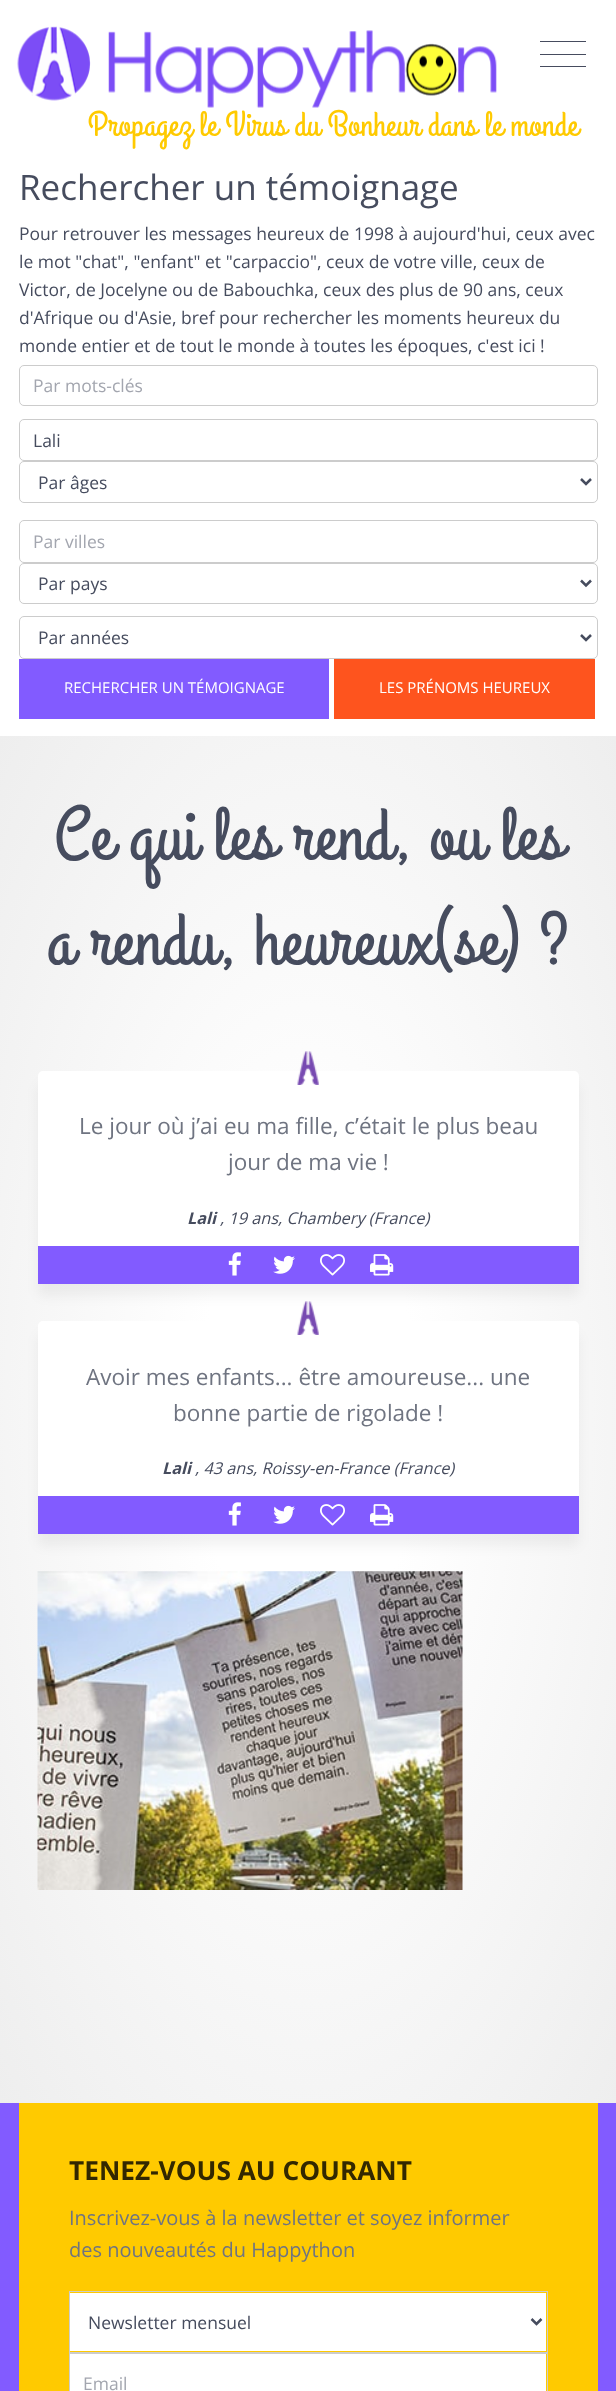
<?xml version="1.0" encoding="UTF-8"?>
<svg xmlns="http://www.w3.org/2000/svg" width="616" height="2391">
    <defs>
        <radialGradient id="g1" gradientUnits="userSpaceOnUse" cx="0" cy="0" r="1" gradientTransform="matrix(436 0 0 966 308 1419)"><stop offset="0.25" stop-color="#FFFFFF"/><stop offset="1" stop-color="#EEEEEE"/></radialGradient>
        <filter id="blur1" x="-50%" y="-200%" width="200%" height="500%"><feGaussianBlur stdDeviation="6"/></filter>
    </defs>
    <rect width="100%" height="100%" fill="#FFFFFF"/>
    <rect x="540" y="41" width="46" height="1" fill="#464C5E"/>
    <rect x="540" y="54" width="46" height="1" fill="#464C5E"/>
    <rect x="540" y="66" width="46" height="1" fill="#464C5E"/>
    <image x="17" y="26" width="480" height="82" href="img_01.png"/>
    <text x="88" y="135" font-family="Grand Hotel" font-size="35" fill="#FFCA00">Propagez le Virus du Bonheur dans le monde</text>
    <text x="19" y="200" font-family="Open Sans" font-size="35" fill="#464C5E">Rechercher un témoignage</text>
    <text font-family="Open Sans" font-size="17.5" fill="#464C5E">
        <tspan x="19" y="240">Pour retrouver les messages heureux de 1998 à aujourd'hui, ceux avec</tspan>
        <tspan x="19" y="268">le mot "chat", "enfant" et "carpaccio", ceux de votre ville, ceux de</tspan>
        <tspan x="19" y="296">Victor, de Jocelyne ou de Babouchka, ceux des plus de 90 ans, ceux</tspan>
        <tspan x="19" y="324">d'Afrique ou d'Asie, bref pour rechercher les moments heureux du</tspan>
        <tspan x="19" y="352">monde entier et de tout le monde à toutes les époques, c'est ici !</tspan>
    </text>
    <rect x="19.5" y="365.5" width="578" height="40" rx="4.5" fill="none" stroke="#CCCCCC"/>
    <text x="33" y="392" font-family="Open Sans" font-size="17.5" fill="#A3A6AF">Par mots-clés</text>
    <rect x="19.5" y="419.5" width="578" height="41" rx="4.5" fill="none" stroke="#CCCCCC"/>
    <text x="33" y="447" font-family="Open Sans" font-size="17.5" fill="#464C5E">Lali</text>
    <rect x="19.5" y="461.5" width="578" height="41" rx="4.5" fill="none" stroke="#CCCCCC"/>
    <path d="M 581 479 L 586 484 L 591 479" fill="none" stroke="#464C5E" stroke-width="2.5"/>
    <text x="38" y="489" font-family="Open Sans" font-size="17.5" fill="#464C5E">Par âges</text>
    <rect x="19.5" y="520.5" width="578" height="42" rx="4.5" fill="none" stroke="#CCCCCC"/>
    <text x="33" y="548" font-family="Open Sans" font-size="17.5" fill="#A3A6AF">Par villes</text>
    <rect x="19.5" y="563.5" width="578" height="40" rx="4.5" fill="none" stroke="#CCCCCC"/>
    <path d="M 581 580.5 L 586 585.5 L 591 580.5" fill="none" stroke="#464C5E" stroke-width="2.5"/>
    <text x="38" y="590" font-family="Open Sans" font-size="17.5" fill="#464C5E">Par pays</text>
    <rect x="19.5" y="616.5" width="578" height="42" rx="4.5" fill="none" stroke="#CCCCCC"/>
    <path d="M 581 635 L 586 640 L 591 635" fill="none" stroke="#464C5E" stroke-width="2.5"/>
    <text x="38" y="644" font-family="Open Sans" font-size="17.5" fill="#464C5E">Par années</text>
    <rect x="19" y="659" width="310" height="60" fill="#825BFF"/>
    <text x="64" y="693" font-family="Open Sans" font-size="15" fill="#FFFFFF">RECHERCHER UN TÉMOIGNAGE</text>
    <rect x="334" y="659" width="261" height="60" fill="#FE541E"/>
    <text x="379" y="693" font-family="Open Sans" font-size="15" fill="#FFFFFF">LES PRÉNOMS HEUREUX</text>
    <rect x="0" y="736" width="616" height="1367" fill="url(#g1)"/>
    <text x="54" y="858" font-family="Grand Hotel" font-size="75" fill="#464C5E">Ce qui les rend, ou les</text>
    <text x="47" y="963" font-family="Grand Hotel" font-size="75" fill="#464C5E">a rendu, heureux(se) ?</text>
    <rect x="38" y="1084" width="541" height="212" rx="5" fill="#000000" fill-opacity="0.05" filter="url(#blur1)"/>
    <rect x="38" y="1071" width="541" height="213" rx="5" fill="#FFFFFF"/>
    <image x="297" y="1051" width="22" height="34" href="img_02.png"/>
    <text x="79" y="1134" font-family="Open Sans" font-size="22.5" fill="#6F7481">Le jour où j’ai eu ma fille, c’était le plus beau</text>
    <text x="228" y="1170" font-family="Open Sans" font-size="22.5" fill="#6F7481">jour de ma vie !</text>
    <text x="187" y="1224" font-family="Open Sans" font-size="16.25" font-weight="700" font-style="italic" fill="#464C5E">Lali</text>
    <text x="220" y="1224" font-family="Open Sans" font-size="16.25" font-style="italic" fill="#464C5E">, 19 ans, Chambery (France)</text>
    <rect x="38" y="1246" width="541" height="38" fill="#825BFF"/>
    <image x="228" y="1252" width="13" height="24" href="img_03.png"/>
    <image x="273" y="1255" width="22" height="19" href="img_04.png"/>
    <image x="320" y="1254" width="25" height="22" href="img_05.png"/>
    <image x="370" y="1254" width="24" height="22" href="img_06.png"/>
    <rect x="38" y="1334" width="541" height="212" rx="5" fill="#000000" fill-opacity="0.05" filter="url(#blur1)"/>
    <rect x="38" y="1321" width="541" height="213" rx="5" fill="#FFFFFF"/>
    <image x="297" y="1301" width="22" height="34" href="img_07.png"/>
    <text x="86" y="1385" font-family="Open Sans" font-size="22.5" fill="#6F7481">Avoir mes enfants... être amoureuse... une</text>
    <text x="173" y="1421" font-family="Open Sans" font-size="22.5" fill="#6F7481">bonne partie de rigolade !</text>
    <text x="162" y="1474" font-family="Open Sans" font-size="16.25" font-weight="700" font-style="italic" fill="#464C5E">Lali</text>
    <text x="195" y="1474" font-family="Open Sans" font-size="16.25" font-style="italic" fill="#464C5E">, 43 ans, Roissy-en-France (France)</text>
    <rect x="38" y="1496" width="541" height="38" fill="#825BFF"/>
    <image x="228" y="1502" width="13" height="24" href="img_03.png"/>
    <image x="273" y="1505" width="22" height="19" href="img_04.png"/>
    <image x="320" y="1504" width="25" height="22" href="img_05.png"/>
    <image x="370" y="1504" width="24" height="22" href="img_06.png"/>
    <image x="37" y="1571" width="426" height="319" href="img_08.png"/>
    <rect x="0" y="2103" width="616" height="288" fill="#825BFF"/>
    <rect x="19" y="2103" width="579" height="288" fill="#FFCA00"/>
    <text x="69" y="2180" font-family="Open Sans" font-size="26.25" font-weight="700" fill="#332800">TENEZ-VOUS AU COURANT</text>
    <text font-family="Open Sans" font-size="20" fill="#6F7481">
        <tspan x="69" y="2225">Inscrivez-vous à la newsletter et soyez informer</tspan>
        <tspan x="69" y="2257">des nouveautés du Happython</tspan>
    </text>
    <rect x="70" y="2293" width="476" height="58" fill="#FFFFFF"/>
    <rect x="69.5" y="2291.5" width="478" height="61" fill="none" stroke="#CCCCCC"/>
    <path d="M 531.5 2319 L 536.5 2324 L 541.5 2319" fill="none" stroke="#464C5E" stroke-width="2.5"/>
    <text x="88" y="2329" font-family="Open Sans" font-size="17.5" fill="#464C5E">Newsletter mensuel</text>
    <rect x="70" y="2354" width="476" height="37" fill="#FFFFFF"/>
    <rect x="69.5" y="2353.5" width="478" height="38" fill="none" stroke="#CCCCCC"/>
    <text x="83" y="2390" font-family="Open Sans" font-size="17.5" fill="#A3A6AF">Email</text>
</svg>
